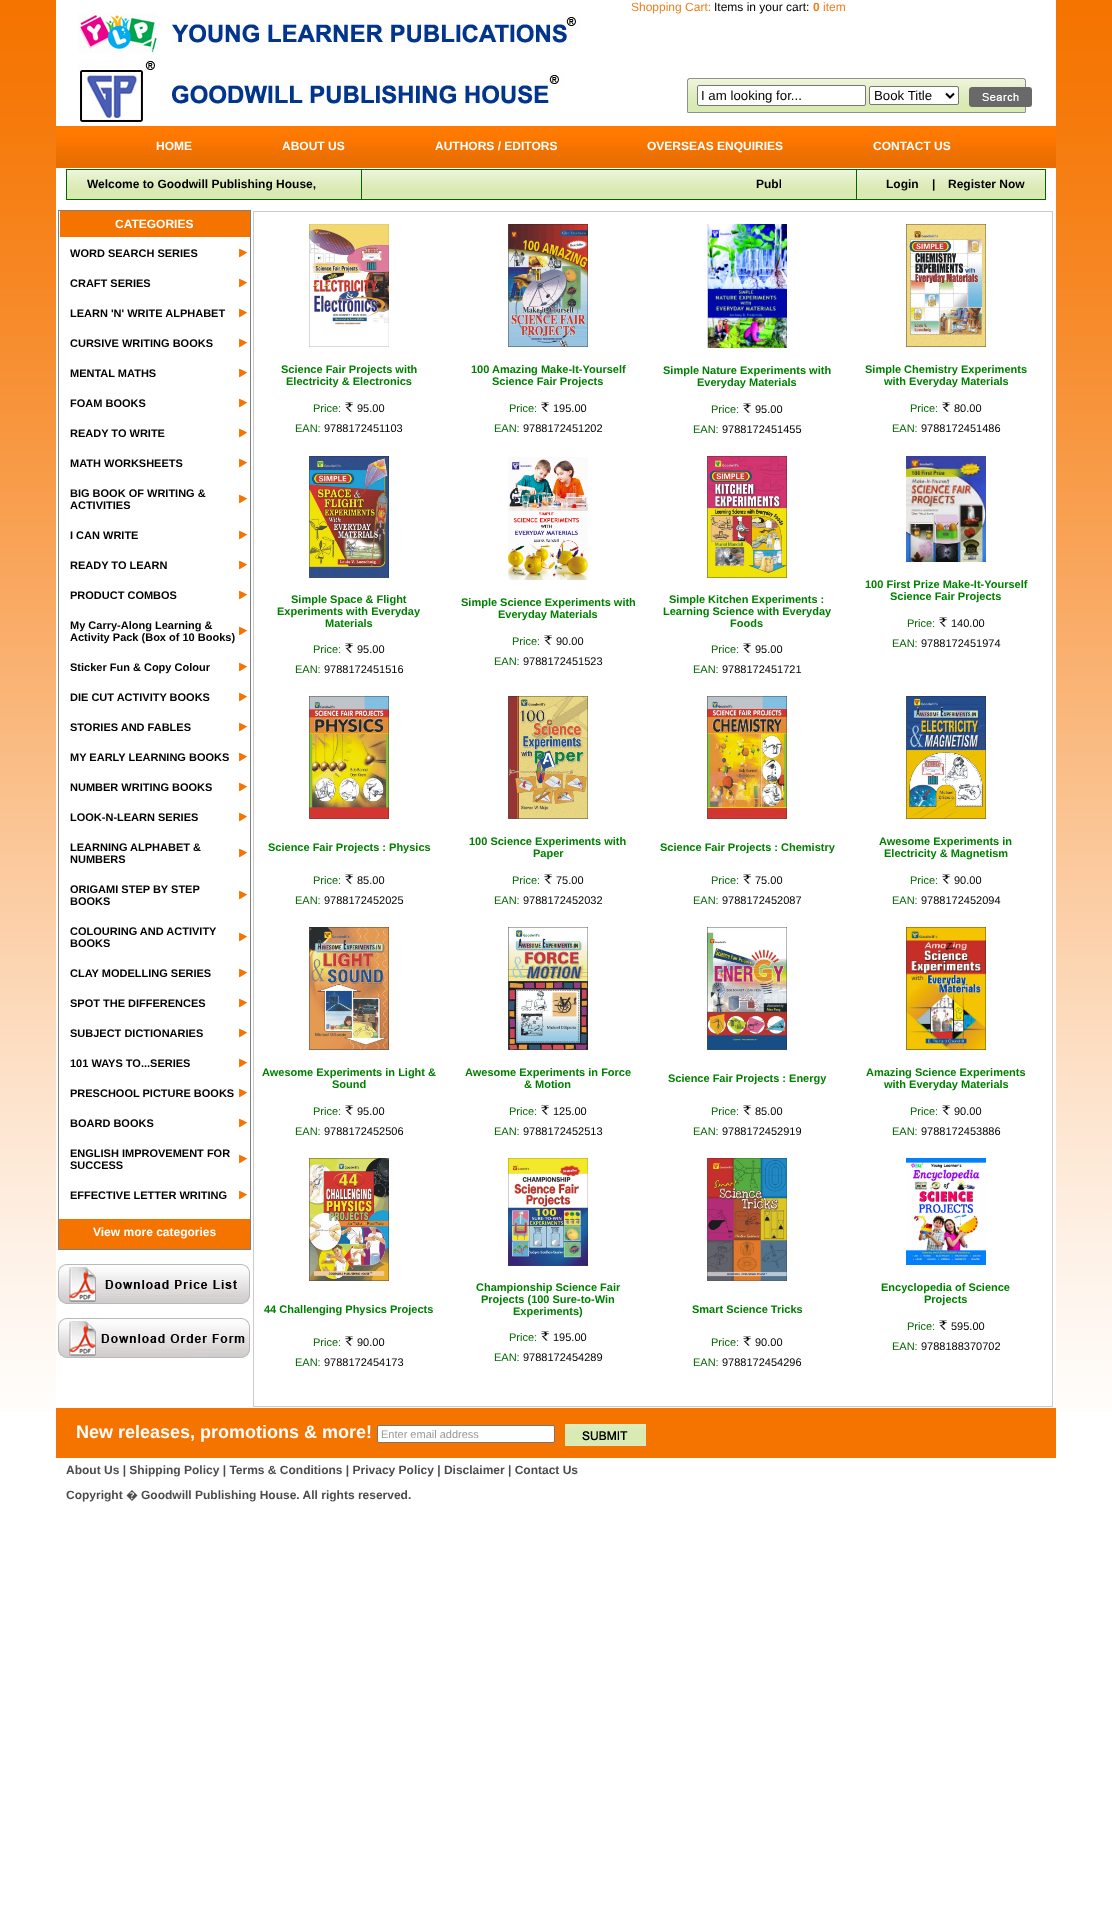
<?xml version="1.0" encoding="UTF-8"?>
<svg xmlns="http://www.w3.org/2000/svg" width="1112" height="1914">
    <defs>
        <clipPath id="clip1"><rect x="381" y="177" width="400" height="14"/></clipPath>
    </defs>
    <rect width="100%" height="100%" fill="#FFFFFF"/>
    <image x="0" y="0" width="1112" height="1412" href="img_01.png"/>
    <rect x="56" y="0" width="1000" height="1412" fill="#FFFFFF"/>
    <image x="77" y="9" width="503" height="113" href="img_02.png"/>
    <text x="631" y="11" font-family="Liberation Sans" font-size="12" fill="#EB8022">Shopping Cart:</text>
    <text x="714" y="11" font-family="Liberation Sans" font-size="12" fill="#000000">Items in your cart:</text>
    <text x="813" y="11" font-family="Liberation Sans" font-size="12" font-weight="700" fill="#EB8022">0</text>
    <text x="823" y="11" font-family="Liberation Sans" font-size="12" fill="#EB8022">item</text>
    <image x="687" y="78" width="339" height="35" href="img_03.png"/>
    <rect x="697.5" y="85.5" width="168" height="20" rx="1.5" fill="#FFFFFF" stroke="#767676"/>
    <text x="701" y="100" font-family="Liberation Sans" font-size="13.25" fill="#000000">I am looking for...</text>
    <rect x="869.5" y="86.5" width="89" height="18" rx="1.5" fill="#FFFFFF" stroke="#767676"/>
    <path d="M 946 93.5 L 950 97.5 L 954 93.5" fill="none" stroke="#000000" stroke-width="2"/>
    <text x="874" y="100" font-family="Liberation Sans" font-size="13.25" fill="#000000">Book Title</text>
    <image x="969" y="87" width="63" height="20" href="img_04.png"/>
    <image x="56" y="126" width="1000" height="42" href="img_05.png"/>
    <text x="156" y="150" font-family="Liberation Sans" font-size="12" font-weight="700" fill="#FFFFFF">HOME</text>
    <text x="282" y="150" font-family="Liberation Sans" font-size="12" font-weight="700" fill="#FFFFFF">ABOUT US</text>
    <text x="435" y="150" font-family="Liberation Sans" font-size="12" font-weight="700" fill="#FFFFFF">AUTHORS / EDITORS</text>
    <text x="647" y="150" font-family="Liberation Sans" font-size="12" font-weight="700" fill="#FFFFFF">OVERSEAS ENQUIRIES</text>
    <text x="873" y="150" font-family="Liberation Sans" font-size="12" font-weight="700" fill="#FFFFFF">CONTACT US</text>
    <rect x="1045" y="169" width="1" height="31" fill="#006600"/>
    <rect x="66" y="199" width="980" height="1" fill="#006600"/>
    <rect x="66" y="169" width="1" height="31" fill="#006600"/>
    <image x="67" y="170" width="294" height="29" href="img_06.png"/>
    <rect x="856" y="169" width="190" height="1" fill="#006600"/>
    <rect x="856" y="169" width="1" height="31" fill="#006600"/>
    <rect x="361" y="169" width="496" height="1" fill="#006600"/>
    <rect x="361" y="169" width="1" height="31" fill="#006600"/>
    <rect x="66" y="169" width="296" height="1" fill="#006600"/>
    <text x="87" y="188" font-family="Liberation Sans" font-size="12" font-weight="700" fill="#000000">Welcome to Goodwill Publishing House,</text>
    <image x="362" y="170" width="494" height="29" href="img_07.png"/>
    <g clip-path="url(#clip1)">
        <text x="756" y="188" font-family="Liberation Sans" font-size="12" font-weight="700" fill="#000000">Publ</text>
    </g>
    <image x="857" y="170" width="188" height="29" href="img_08.png"/>
    <text x="886" y="188" font-family="Liberation Sans" font-size="12" font-weight="700" fill="#000000">Login</text>
    <text x="932" y="188" font-family="Liberation Sans" font-size="12" font-weight="700" fill="#000000">|</text>
    <text x="948" y="188" font-family="Liberation Sans" font-size="12" font-weight="700" fill="#000000">Register Now</text>
    <rect x="58" y="210" width="193" height="1" fill="#808080"/>
    <rect x="250" y="210" width="1" height="1040" fill="#808080"/>
    <rect x="58" y="1249" width="193" height="1" fill="#808080"/>
    <rect x="58" y="210" width="1" height="1040" fill="#808080"/>
    <rect x="60" y="211" width="190" height="26" fill="#F57400"/>
    <text x="115" y="228" font-family="Liberation Sans" font-size="12" font-weight="700" fill="#FFFFFF">CATEGORIES</text>
    <image x="239" y="248" width="8" height="10" href="img_09.png"/>
    <text x="70" y="257" font-family="Liberation Sans" font-size="11" font-weight="700" fill="#000000">WORD SEARCH SERIES</text>
    <image x="239" y="278" width="8" height="10" href="img_09.png"/>
    <text x="70" y="287" font-family="Liberation Sans" font-size="11" font-weight="700" fill="#000000">CRAFT SERIES</text>
    <image x="239" y="308" width="8" height="10" href="img_09.png"/>
    <text x="70" y="317" font-family="Liberation Sans" font-size="11" font-weight="700" fill="#000000">LEARN 'N' WRITE ALPHABET</text>
    <image x="239" y="338" width="8" height="10" href="img_09.png"/>
    <text x="70" y="347" font-family="Liberation Sans" font-size="11" font-weight="700" fill="#000000">CURSIVE WRITING BOOKS</text>
    <image x="239" y="368" width="8" height="10" href="img_09.png"/>
    <text x="70" y="377" font-family="Liberation Sans" font-size="11" font-weight="700" fill="#000000">MENTAL MATHS</text>
    <image x="239" y="398" width="8" height="10" href="img_09.png"/>
    <text x="70" y="407" font-family="Liberation Sans" font-size="11" font-weight="700" fill="#000000">FOAM BOOKS</text>
    <image x="239" y="428" width="8" height="10" href="img_09.png"/>
    <text x="70" y="437" font-family="Liberation Sans" font-size="11" font-weight="700" fill="#000000">READY TO WRITE</text>
    <image x="239" y="458" width="8" height="10" href="img_09.png"/>
    <text x="70" y="467" font-family="Liberation Sans" font-size="11" font-weight="700" fill="#000000">MATH WORKSHEETS</text>
    <image x="239" y="494" width="8" height="10" href="img_09.png"/>
    <text font-family="Liberation Sans" font-size="11" font-weight="700" fill="#000000">
        <tspan x="70" y="497">BIG BOOK OF WRITING &amp;</tspan>
        <tspan x="70" y="509">ACTIVITIES</tspan>
    </text>
    <image x="239" y="530" width="8" height="10" href="img_09.png"/>
    <text x="70" y="539" font-family="Liberation Sans" font-size="11" font-weight="700" fill="#000000">I CAN WRITE</text>
    <image x="239" y="560" width="8" height="10" href="img_09.png"/>
    <text x="70" y="569" font-family="Liberation Sans" font-size="11" font-weight="700" fill="#000000">READY TO LEARN</text>
    <image x="239" y="590" width="8" height="10" href="img_09.png"/>
    <text x="70" y="599" font-family="Liberation Sans" font-size="11" font-weight="700" fill="#000000">PRODUCT COMBOS</text>
    <image x="239" y="626" width="8" height="10" href="img_09.png"/>
    <text font-family="Liberation Sans" font-size="11" font-weight="700" fill="#000000">
        <tspan x="70" y="629">My Carry-Along Learning &amp;</tspan>
        <tspan x="70" y="641">Activity Pack (Box of 10 Books)</tspan>
    </text>
    <image x="239" y="662" width="8" height="10" href="img_09.png"/>
    <text x="70" y="671" font-family="Liberation Sans" font-size="11" font-weight="700" fill="#000000">Sticker Fun &amp; Copy Colour</text>
    <image x="239" y="692" width="8" height="10" href="img_09.png"/>
    <text x="70" y="701" font-family="Liberation Sans" font-size="11" font-weight="700" fill="#000000">DIE CUT ACTIVITY BOOKS</text>
    <image x="239" y="722" width="8" height="10" href="img_09.png"/>
    <text x="70" y="731" font-family="Liberation Sans" font-size="11" font-weight="700" fill="#000000">STORIES AND FABLES</text>
    <image x="239" y="752" width="8" height="10" href="img_09.png"/>
    <text x="70" y="761" font-family="Liberation Sans" font-size="11" font-weight="700" fill="#000000">MY EARLY LEARNING BOOKS</text>
    <image x="239" y="782" width="8" height="10" href="img_09.png"/>
    <text x="70" y="791" font-family="Liberation Sans" font-size="11" font-weight="700" fill="#000000">NUMBER WRITING BOOKS</text>
    <image x="239" y="812" width="8" height="10" href="img_09.png"/>
    <text x="70" y="821" font-family="Liberation Sans" font-size="11" font-weight="700" fill="#000000">LOOK-N-LEARN SERIES</text>
    <image x="239" y="848" width="8" height="10" href="img_09.png"/>
    <text font-family="Liberation Sans" font-size="11" font-weight="700" fill="#000000">
        <tspan x="70" y="851">LEARNING ALPHABET &amp;</tspan>
        <tspan x="70" y="863">NUMBERS</tspan>
    </text>
    <image x="239" y="890" width="8" height="10" href="img_09.png"/>
    <text font-family="Liberation Sans" font-size="11" font-weight="700" fill="#000000">
        <tspan x="70" y="893">ORIGAMI STEP BY STEP</tspan>
        <tspan x="70" y="905">BOOKS</tspan>
    </text>
    <image x="239" y="932" width="8" height="10" href="img_09.png"/>
    <text font-family="Liberation Sans" font-size="11" font-weight="700" fill="#000000">
        <tspan x="70" y="935">COLOURING AND ACTIVITY</tspan>
        <tspan x="70" y="947">BOOKS</tspan>
    </text>
    <image x="239" y="968" width="8" height="10" href="img_09.png"/>
    <text x="70" y="977" font-family="Liberation Sans" font-size="11" font-weight="700" fill="#000000">CLAY MODELLING SERIES</text>
    <image x="239" y="998" width="8" height="10" href="img_09.png"/>
    <text x="70" y="1007" font-family="Liberation Sans" font-size="11" font-weight="700" fill="#000000">SPOT THE DIFFERENCES</text>
    <image x="239" y="1028" width="8" height="10" href="img_09.png"/>
    <text x="70" y="1037" font-family="Liberation Sans" font-size="11" font-weight="700" fill="#000000">SUBJECT DICTIONARIES</text>
    <image x="239" y="1058" width="8" height="10" href="img_09.png"/>
    <text x="70" y="1067" font-family="Liberation Sans" font-size="11" font-weight="700" fill="#000000">101 WAYS TO...SERIES</text>
    <image x="239" y="1088" width="8" height="10" href="img_09.png"/>
    <text x="70" y="1097" font-family="Liberation Sans" font-size="11" font-weight="700" fill="#000000">PRESCHOOL PICTURE BOOKS</text>
    <image x="239" y="1118" width="8" height="10" href="img_09.png"/>
    <text x="70" y="1127" font-family="Liberation Sans" font-size="11" font-weight="700" fill="#000000">BOARD BOOKS</text>
    <image x="239" y="1154" width="8" height="10" href="img_09.png"/>
    <text font-family="Liberation Sans" font-size="11" font-weight="700" fill="#000000">
        <tspan x="70" y="1157">ENGLISH IMPROVEMENT FOR</tspan>
        <tspan x="70" y="1169">SUCCESS</tspan>
    </text>
    <image x="239" y="1190" width="8" height="10" href="img_09.png"/>
    <text x="70" y="1199" font-family="Liberation Sans" font-size="11" font-weight="700" fill="#000000">EFFECTIVE LETTER WRITING</text>
    <rect x="59" y="1219" width="191" height="30" fill="#F57400"/>
    <text x="93" y="1236" font-family="Liberation Sans" font-size="12" font-weight="700" fill="#FFFFFF">View more categories</text>
    <image x="58" y="1264" width="192" height="40" href="img_10.png"/>
    <image x="58" y="1318" width="192" height="40" href="img_11.png"/>
    <rect x="253.5" y="211.5" width="799" height="1195" fill="none" stroke="#CCCCCC"/>
    <image x="309" y="224" width="80" height="123" href="img_12.png"/>
    <text x="281" y="373" font-family="Liberation Sans" font-size="11" font-weight="700" fill="#008000">Science Fair Projects with</text>
    <text x="286" y="385" font-family="Liberation Sans" font-size="11" font-weight="700" fill="#008000">Electricity &amp; Electronics</text>
    <text x="313" y="412" font-family="Liberation Sans" font-size="11" fill="#006400">Price:</text>
    <image x="345" y="402" width="9" height="10" href="img_13.png"/>
    <text x="357" y="412" font-family="Liberation Sans" font-size="11" fill="#000000">95.00</text>
    <text x="295" y="432" font-family="Liberation Sans" font-size="11" fill="#006400">EAN:</text>
    <text x="324" y="432" font-family="Liberation Sans" font-size="11" fill="#000000">9788172451103</text>
    <image x="508" y="224" width="80" height="123" href="img_14.png"/>
    <text x="471" y="373" font-family="Liberation Sans" font-size="11" font-weight="700" fill="#008000">100 Amazing Make-It-Yourself</text>
    <text x="492" y="385" font-family="Liberation Sans" font-size="11" font-weight="700" fill="#008000">Science Fair Projects</text>
    <text x="509" y="412" font-family="Liberation Sans" font-size="11" fill="#006400">Price:</text>
    <image x="541" y="402" width="9" height="10" href="img_15.png"/>
    <text x="553" y="412" font-family="Liberation Sans" font-size="11" fill="#000000">195.00</text>
    <text x="494" y="432" font-family="Liberation Sans" font-size="11" fill="#006400">EAN:</text>
    <text x="523" y="432" font-family="Liberation Sans" font-size="11" fill="#000000">9788172451202</text>
    <image x="707" y="224" width="80" height="124" href="img_16.png"/>
    <text x="663" y="374" font-family="Liberation Sans" font-size="11" font-weight="700" fill="#008000">Simple Nature Experiments with</text>
    <text x="697" y="386" font-family="Liberation Sans" font-size="11" font-weight="700" fill="#008000">Everyday Materials</text>
    <text x="711" y="413" font-family="Liberation Sans" font-size="11" fill="#006400">Price:</text>
    <image x="743" y="403" width="9" height="10" href="img_17.png"/>
    <text x="755" y="413" font-family="Liberation Sans" font-size="11" fill="#000000">95.00</text>
    <text x="693" y="433" font-family="Liberation Sans" font-size="11" fill="#006400">EAN:</text>
    <text x="722" y="433" font-family="Liberation Sans" font-size="11" fill="#000000">9788172451455</text>
    <image x="906" y="224" width="80" height="123" href="img_18.png"/>
    <text x="865" y="373" font-family="Liberation Sans" font-size="11" font-weight="700" fill="#008000">Simple Chemistry Experiments</text>
    <text x="884" y="385" font-family="Liberation Sans" font-size="11" font-weight="700" fill="#008000">with Everyday Materials</text>
    <text x="910" y="412" font-family="Liberation Sans" font-size="11" fill="#006400">Price:</text>
    <image x="942" y="402" width="9" height="10" href="img_15.png"/>
    <text x="954" y="412" font-family="Liberation Sans" font-size="11" fill="#000000">80.00</text>
    <text x="892" y="432" font-family="Liberation Sans" font-size="11" fill="#006400">EAN:</text>
    <text x="921" y="432" font-family="Liberation Sans" font-size="11" fill="#000000">9788172451486</text>
    <image x="309" y="456" width="80" height="122" href="img_19.png"/>
    <text x="291" y="603" font-family="Liberation Sans" font-size="11" font-weight="700" fill="#008000">Simple Space &amp; Flight</text>
    <text x="277" y="615" font-family="Liberation Sans" font-size="11" font-weight="700" fill="#008000">Experiments with Everyday</text>
    <text x="325" y="627" font-family="Liberation Sans" font-size="11" font-weight="700" fill="#008000">Materials</text>
    <text x="313" y="653" font-family="Liberation Sans" font-size="11" fill="#006400">Price:</text>
    <image x="345" y="643" width="9" height="10" href="img_17.png"/>
    <text x="357" y="653" font-family="Liberation Sans" font-size="11" fill="#000000">95.00</text>
    <text x="295" y="673" font-family="Liberation Sans" font-size="11" fill="#006400">EAN:</text>
    <text x="324" y="673" font-family="Liberation Sans" font-size="11" fill="#000000">9788172451516</text>
    <image x="508" y="457" width="80" height="123" href="img_20.png"/>
    <text x="461" y="606" font-family="Liberation Sans" font-size="11" font-weight="700" fill="#008000">Simple Science Experiments with</text>
    <text x="498" y="618" font-family="Liberation Sans" font-size="11" font-weight="700" fill="#008000">Everyday Materials</text>
    <text x="512" y="645" font-family="Liberation Sans" font-size="11" fill="#006400">Price:</text>
    <image x="544" y="635" width="9" height="10" href="img_21.png"/>
    <text x="556" y="645" font-family="Liberation Sans" font-size="11" fill="#000000">90.00</text>
    <text x="494" y="665" font-family="Liberation Sans" font-size="11" fill="#006400">EAN:</text>
    <text x="523" y="665" font-family="Liberation Sans" font-size="11" fill="#000000">9788172451523</text>
    <image x="707" y="456" width="80" height="122" href="img_22.png"/>
    <text x="669" y="603" font-family="Liberation Sans" font-size="11" font-weight="700" fill="#008000">Simple Kitchen Experiments :</text>
    <text x="663" y="615" font-family="Liberation Sans" font-size="11" font-weight="700" fill="#008000">Learning Science with Everyday</text>
    <text x="730" y="627" font-family="Liberation Sans" font-size="11" font-weight="700" fill="#008000">Foods</text>
    <text x="711" y="653" font-family="Liberation Sans" font-size="11" fill="#006400">Price:</text>
    <image x="743" y="643" width="9" height="10" href="img_17.png"/>
    <text x="755" y="653" font-family="Liberation Sans" font-size="11" fill="#000000">95.00</text>
    <text x="693" y="673" font-family="Liberation Sans" font-size="11" fill="#006400">EAN:</text>
    <text x="722" y="673" font-family="Liberation Sans" font-size="11" fill="#000000">9788172451721</text>
    <image x="906" y="456" width="80" height="106" href="img_23.png"/>
    <text x="865" y="588" font-family="Liberation Sans" font-size="11" font-weight="700" fill="#008000">100 First Prize Make-It-Yourself</text>
    <text x="890" y="600" font-family="Liberation Sans" font-size="11" font-weight="700" fill="#008000">Science Fair Projects</text>
    <text x="907" y="627" font-family="Liberation Sans" font-size="11" fill="#006400">Price:</text>
    <image x="939" y="617" width="9" height="10" href="img_17.png"/>
    <text x="951" y="627" font-family="Liberation Sans" font-size="11" fill="#000000">140.00</text>
    <text x="892" y="647" font-family="Liberation Sans" font-size="11" fill="#006400">EAN:</text>
    <text x="921" y="647" font-family="Liberation Sans" font-size="11" fill="#000000">9788172451974</text>
    <image x="309" y="696" width="80" height="123" href="img_24.png"/>
    <text x="268" y="851" font-family="Liberation Sans" font-size="11" font-weight="700" fill="#008000">Science Fair Projects : Physics</text>
    <text x="313" y="884" font-family="Liberation Sans" font-size="11" fill="#006400">Price:</text>
    <image x="345" y="874" width="9" height="10" href="img_17.png"/>
    <text x="357" y="884" font-family="Liberation Sans" font-size="11" fill="#000000">85.00</text>
    <text x="295" y="904" font-family="Liberation Sans" font-size="11" fill="#006400">EAN:</text>
    <text x="324" y="904" font-family="Liberation Sans" font-size="11" fill="#000000">9788172452025</text>
    <image x="508" y="696" width="80" height="123" href="img_25.png"/>
    <text x="469" y="845" font-family="Liberation Sans" font-size="11" font-weight="700" fill="#008000">100 Science Experiments with</text>
    <text x="533" y="857" font-family="Liberation Sans" font-size="11" font-weight="700" fill="#008000">Paper</text>
    <text x="512" y="884" font-family="Liberation Sans" font-size="11" fill="#006400">Price:</text>
    <image x="544" y="874" width="9" height="10" href="img_21.png"/>
    <text x="556" y="884" font-family="Liberation Sans" font-size="11" fill="#000000">75.00</text>
    <text x="494" y="904" font-family="Liberation Sans" font-size="11" fill="#006400">EAN:</text>
    <text x="523" y="904" font-family="Liberation Sans" font-size="11" fill="#000000">9788172452032</text>
    <image x="707" y="696" width="80" height="123" href="img_26.png"/>
    <text x="660" y="851" font-family="Liberation Sans" font-size="11" font-weight="700" fill="#008000">Science Fair Projects : Chemistry</text>
    <text x="711" y="884" font-family="Liberation Sans" font-size="11" fill="#006400">Price:</text>
    <image x="743" y="874" width="9" height="10" href="img_17.png"/>
    <text x="755" y="884" font-family="Liberation Sans" font-size="11" fill="#000000">75.00</text>
    <text x="693" y="904" font-family="Liberation Sans" font-size="11" fill="#006400">EAN:</text>
    <text x="722" y="904" font-family="Liberation Sans" font-size="11" fill="#000000">9788172452087</text>
    <image x="906" y="696" width="80" height="123" href="img_27.png"/>
    <text x="879" y="845" font-family="Liberation Sans" font-size="11" font-weight="700" fill="#008000">Awesome Experiments in</text>
    <text x="884" y="857" font-family="Liberation Sans" font-size="11" font-weight="700" fill="#008000">Electricity &amp; Magnetism</text>
    <text x="910" y="884" font-family="Liberation Sans" font-size="11" fill="#006400">Price:</text>
    <image x="942" y="874" width="9" height="10" href="img_21.png"/>
    <text x="954" y="884" font-family="Liberation Sans" font-size="11" fill="#000000">90.00</text>
    <text x="892" y="904" font-family="Liberation Sans" font-size="11" fill="#006400">EAN:</text>
    <text x="921" y="904" font-family="Liberation Sans" font-size="11" fill="#000000">9788172452094</text>
    <image x="309" y="927" width="80" height="123" href="img_28.png"/>
    <text x="262" y="1076" font-family="Liberation Sans" font-size="11" font-weight="700" fill="#008000">Awesome Experiments in Light &amp;</text>
    <text x="332" y="1088" font-family="Liberation Sans" font-size="11" font-weight="700" fill="#008000">Sound</text>
    <text x="313" y="1115" font-family="Liberation Sans" font-size="11" fill="#006400">Price:</text>
    <image x="345" y="1105" width="9" height="10" href="img_17.png"/>
    <text x="357" y="1115" font-family="Liberation Sans" font-size="11" fill="#000000">95.00</text>
    <text x="295" y="1135" font-family="Liberation Sans" font-size="11" fill="#006400">EAN:</text>
    <text x="324" y="1135" font-family="Liberation Sans" font-size="11" fill="#000000">9788172452506</text>
    <image x="508" y="927" width="80" height="123" href="img_29.png"/>
    <text x="465" y="1076" font-family="Liberation Sans" font-size="11" font-weight="700" fill="#008000">Awesome Experiments in Force</text>
    <text x="524" y="1088" font-family="Liberation Sans" font-size="11" font-weight="700" fill="#008000">&amp; Motion</text>
    <text x="509" y="1115" font-family="Liberation Sans" font-size="11" fill="#006400">Price:</text>
    <image x="541" y="1105" width="9" height="10" href="img_21.png"/>
    <text x="553" y="1115" font-family="Liberation Sans" font-size="11" fill="#000000">125.00</text>
    <text x="494" y="1135" font-family="Liberation Sans" font-size="11" fill="#006400">EAN:</text>
    <text x="523" y="1135" font-family="Liberation Sans" font-size="11" fill="#000000">9788172452513</text>
    <image x="707" y="927" width="80" height="123" href="img_30.png"/>
    <text x="668" y="1082" font-family="Liberation Sans" font-size="11" font-weight="700" fill="#008000">Science Fair Projects : Energy</text>
    <text x="711" y="1115" font-family="Liberation Sans" font-size="11" fill="#006400">Price:</text>
    <image x="743" y="1105" width="9" height="10" href="img_17.png"/>
    <text x="755" y="1115" font-family="Liberation Sans" font-size="11" fill="#000000">85.00</text>
    <text x="693" y="1135" font-family="Liberation Sans" font-size="11" fill="#006400">EAN:</text>
    <text x="722" y="1135" font-family="Liberation Sans" font-size="11" fill="#000000">9788172452919</text>
    <image x="906" y="927" width="80" height="123" href="img_31.png"/>
    <text x="866" y="1076" font-family="Liberation Sans" font-size="11" font-weight="700" fill="#008000">Amazing Science Experiments</text>
    <text x="884" y="1088" font-family="Liberation Sans" font-size="11" font-weight="700" fill="#008000">with Everyday Materials</text>
    <text x="910" y="1115" font-family="Liberation Sans" font-size="11" fill="#006400">Price:</text>
    <image x="942" y="1105" width="9" height="10" href="img_21.png"/>
    <text x="954" y="1115" font-family="Liberation Sans" font-size="11" fill="#000000">90.00</text>
    <text x="892" y="1135" font-family="Liberation Sans" font-size="11" fill="#006400">EAN:</text>
    <text x="921" y="1135" font-family="Liberation Sans" font-size="11" fill="#000000">9788172453886</text>
    <image x="309" y="1158" width="80" height="123" href="img_32.png"/>
    <text x="264" y="1313" font-family="Liberation Sans" font-size="11" font-weight="700" fill="#008000">44 Challenging Physics Projects</text>
    <text x="313" y="1346" font-family="Liberation Sans" font-size="11" fill="#006400">Price:</text>
    <image x="345" y="1336" width="9" height="10" href="img_17.png"/>
    <text x="357" y="1346" font-family="Liberation Sans" font-size="11" fill="#000000">90.00</text>
    <text x="295" y="1366" font-family="Liberation Sans" font-size="11" fill="#006400">EAN:</text>
    <text x="324" y="1366" font-family="Liberation Sans" font-size="11" fill="#000000">9788172454173</text>
    <image x="508" y="1158" width="80" height="108" href="img_33.png"/>
    <text x="476" y="1291" font-family="Liberation Sans" font-size="11" font-weight="700" fill="#008000">Championship Science Fair</text>
    <text x="481" y="1303" font-family="Liberation Sans" font-size="11" font-weight="700" fill="#008000">Projects (100 Sure-to-Win</text>
    <text x="513" y="1315" font-family="Liberation Sans" font-size="11" font-weight="700" fill="#008000">Experiments)</text>
    <text x="509" y="1341" font-family="Liberation Sans" font-size="11" fill="#006400">Price:</text>
    <image x="541" y="1331" width="9" height="10" href="img_21.png"/>
    <text x="553" y="1341" font-family="Liberation Sans" font-size="11" fill="#000000">195.00</text>
    <text x="494" y="1361" font-family="Liberation Sans" font-size="11" fill="#006400">EAN:</text>
    <text x="523" y="1361" font-family="Liberation Sans" font-size="11" fill="#000000">9788172454289</text>
    <image x="707" y="1158" width="80" height="123" href="img_34.png"/>
    <text x="692" y="1313" font-family="Liberation Sans" font-size="11" font-weight="700" fill="#008000">Smart Science Tricks</text>
    <text x="711" y="1346" font-family="Liberation Sans" font-size="11" fill="#006400">Price:</text>
    <image x="743" y="1336" width="9" height="10" href="img_17.png"/>
    <text x="755" y="1346" font-family="Liberation Sans" font-size="11" fill="#000000">90.00</text>
    <text x="693" y="1366" font-family="Liberation Sans" font-size="11" fill="#006400">EAN:</text>
    <text x="722" y="1366" font-family="Liberation Sans" font-size="11" fill="#000000">9788172454296</text>
    <image x="906" y="1158" width="80" height="107" href="img_35.png"/>
    <text x="881" y="1291" font-family="Liberation Sans" font-size="11" font-weight="700" fill="#008000">Encyclopedia of Science</text>
    <text x="924" y="1303" font-family="Liberation Sans" font-size="11" font-weight="700" fill="#008000">Projects</text>
    <text x="907" y="1330" font-family="Liberation Sans" font-size="11" fill="#006400">Price:</text>
    <image x="939" y="1320" width="9" height="10" href="img_13.png"/>
    <text x="951" y="1330" font-family="Liberation Sans" font-size="11" fill="#000000">595.00</text>
    <text x="892" y="1350" font-family="Liberation Sans" font-size="11" fill="#006400">EAN:</text>
    <text x="921" y="1350" font-family="Liberation Sans" font-size="11" fill="#000000">9788188370702</text>
    <rect x="56" y="1408" width="1000" height="50" fill="#F57400"/>
    <text x="76" y="1438" font-family="Liberation Sans" font-size="18" font-weight="700" fill="#FFFFFF">New releases, promotions &amp; more!</text>
    <rect x="377.5" y="1425.5" width="177" height="17" rx="1.5" fill="#FFFFFF" stroke="#767676"/>
    <text x="381" y="1438" font-family="Liberation Sans" font-size="11" fill="#999999">Enter email address</text>
    <image x="565" y="1424" width="81" height="22" href="img_36.png"/>
    <text x="66" y="1474" font-family="Liberation Sans" font-size="12" font-weight="700" fill="#4C4C4C">About Us | Shipping Policy | Terms &amp; Conditions | Privacy Policy | Disclaimer | Contact Us</text>
    <text x="66" y="1499" font-family="Liberation Sans" font-size="12" font-weight="700" fill="#4C4C4C">Copyright</text>
    <text x="126" y="1499" font-family="Noto Sans" font-size="12" font-weight="700" fill="#4C4C4C">�</text>
    <text x="141" y="1499" font-family="Liberation Sans" font-size="12" font-weight="700" fill="#4C4C4C">Goodwill Publishing House. All rights reserved.</text>
</svg>
